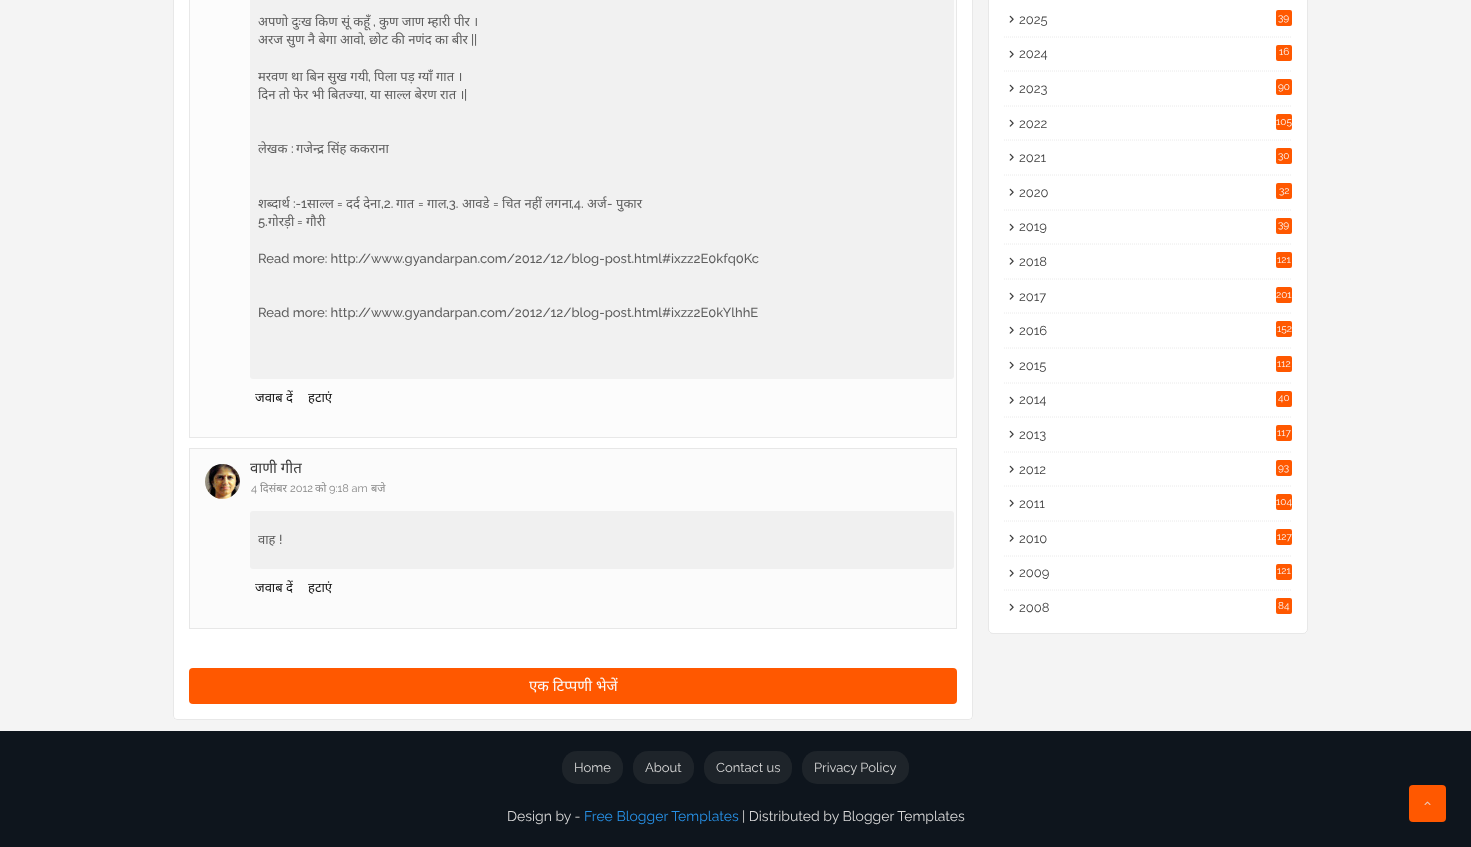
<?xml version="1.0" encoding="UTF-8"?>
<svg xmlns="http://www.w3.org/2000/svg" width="1471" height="847">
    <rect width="100%" height="100%" fill="#F4F4F4"/>
    <rect x="173" y="-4" width="800" height="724" rx="4" fill="#FFFFFF"/>
    <rect x="173.5" y="-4.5" width="799" height="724" rx="3.5" fill="none" stroke="#6D6D6D" stroke-opacity="0.16"/>
    <rect x="189.5" y="-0.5" width="767" height="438" fill="#FCFCFC" stroke="#E8E8E8"/>
    <rect x="250" y="-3" width="704" height="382" rx="3" fill="#F1F1F1"/>
    <text x="258" y="26" font-family="Noto Sans" font-size="13" fill="#5E5E5E">अपणो दुःख किण सूं कहूँ</text>
    <text x="373" y="26" font-family="Raleway" font-size="13" font-weight="500" fill="#5E5E5E">,</text>
    <text x="379" y="26" font-family="Noto Sans" font-size="13" fill="#5E5E5E">कुण जाण म्हारी पीर ।</text>
    <text x="258" y="44" font-family="Noto Sans" font-size="13" fill="#5E5E5E">अरज सुण नै बेगा आवो</text>
    <text x="363" y="44" font-family="Raleway" font-size="13" font-weight="500" fill="#5E5E5E">,</text>
    <text x="369" y="44" font-family="Noto Sans" font-size="13" fill="#5E5E5E">छोट की नणंद का बीर</text>
    <text x="471" y="44" font-family="Raleway" font-size="13" font-weight="500" fill="#5E5E5E">||</text>
    <text x="258" y="81" font-family="Noto Sans" font-size="13" fill="#5E5E5E">मरवण था बिन सुख गयी</text>
    <text x="368" y="81" font-family="Raleway" font-size="13" font-weight="500" fill="#5E5E5E">,</text>
    <text x="374" y="81" font-family="Noto Sans" font-size="13" fill="#5E5E5E">पिला पड़ ग्याँ गात ।</text>
    <text x="258" y="99" font-family="Noto Sans" font-size="13" fill="#5E5E5E">दिन तो फेर भी बितज्या</text>
    <text x="364" y="99" font-family="Raleway" font-size="13" font-weight="500" fill="#5E5E5E">,</text>
    <text x="370" y="99" font-family="Noto Sans" font-size="13" fill="#5E5E5E">या साल्ल बेरण रात ।</text>
    <text x="464" y="99" font-family="Raleway" font-size="13" font-weight="500" fill="#5E5E5E">|</text>
    <text x="258" y="153" font-family="Noto Sans" font-size="13" fill="#5E5E5E">लेखक</text>
    <text x="291" y="153" font-family="Raleway" font-size="13" font-weight="500" fill="#5E5E5E">:</text>
    <text x="296" y="153" font-family="Noto Sans" font-size="13" fill="#5E5E5E">गजेन्द्र सिंह ककराना</text>
    <text x="258" y="208" font-family="Noto Sans" font-size="13" fill="#5E5E5E">शब्दार्थ</text>
    <text x="293" y="208" font-family="Raleway" font-size="13" font-weight="500" fill="#5E5E5E">:-1</text>
    <text x="307" y="208" font-family="Noto Sans" font-size="13" fill="#5E5E5E">साल्ल</text>
    <text x="337" y="208" font-family="Raleway" font-size="13" font-weight="500" fill="#5E5E5E">=</text>
    <text x="346" y="208" font-family="Noto Sans" font-size="13" fill="#5E5E5E">दर्द देना</text>
    <text x="381" y="208" font-family="Raleway" font-size="13" font-weight="500" fill="#5E5E5E">,2.</text>
    <text x="396" y="208" font-family="Noto Sans" font-size="13" fill="#5E5E5E">गात</text>
    <text x="418" y="208" font-family="Raleway" font-size="13" font-weight="500" fill="#5E5E5E">=</text>
    <text x="427" y="208" font-family="Noto Sans" font-size="13" fill="#5E5E5E">गाल</text>
    <text x="446" y="208" font-family="Raleway" font-size="13" font-weight="500" fill="#5E5E5E">,3.</text>
    <text x="462" y="208" font-family="Noto Sans" font-size="13" fill="#5E5E5E">आवडे</text>
    <text x="493" y="208" font-family="Raleway" font-size="13" font-weight="500" fill="#5E5E5E">=</text>
    <text x="502" y="208" font-family="Noto Sans" font-size="13" fill="#5E5E5E">चित नहीं लगना</text>
    <text x="571" y="208" font-family="Raleway" font-size="13" font-weight="500" fill="#5E5E5E">,4.</text>
    <text x="587" y="208" font-family="Noto Sans" font-size="13" fill="#5E5E5E">अर्ज</text>
    <text x="607" y="208" font-family="Raleway" font-size="13" font-weight="500" fill="#5E5E5E">-</text>
    <text x="616" y="208" font-family="Noto Sans" font-size="13" fill="#5E5E5E">पुकार</text>
    <text x="258" y="226" font-family="Raleway" font-size="13" font-weight="500" fill="#5E5E5E">5.</text>
    <text x="268" y="226" font-family="Noto Sans" font-size="13" fill="#5E5E5E">गोरड़ी</text>
    <text x="297" y="226" font-family="Raleway" font-size="13" font-weight="500" fill="#5E5E5E">=</text>
    <text x="306" y="226" font-family="Noto Sans" font-size="13" fill="#5E5E5E">गौरी</text>
    <text x="258" y="263" font-family="Raleway" font-size="13" font-weight="500" fill="#5E5E5E">Read more: http://www.gyandarpan.com/2012/12/blog-post.html#ixzz2E0kfq0Kc</text>
    <text x="258" y="317" font-family="Raleway" font-size="13" font-weight="500" fill="#5E5E5E">Read more: http://www.gyandarpan.com/2012/12/blog-post.html#ixzz2E0kYlhhE</text>
    <text x="255" y="402" font-family="Noto Sans" font-size="13" fill="#101010">जवाब दें</text>
    <text x="308" y="402" font-family="Noto Sans" font-size="13" fill="#101010">हटाएं</text>
    <rect x="189.5" y="448.5" width="767" height="180" fill="#FBFBFB" stroke="#E7E7E7"/>
    <image x="205" y="464" width="35" height="35" href="img_01.png"/>
    <text x="250" y="473" font-family="Noto Sans" font-size="15" fill="#3E3E3E">वाणी गीत</text>
    <text x="251" y="492" font-family="Raleway" font-size="11" fill="#888888">4</text>
    <text x="260" y="492" font-family="Noto Sans" font-size="11" fill="#888888">दिसंबर</text>
    <text x="290" y="492" font-family="Raleway" font-size="11" fill="#888888">2012</text>
    <text x="315" y="492" font-family="Noto Sans" font-size="11" fill="#888888">को</text>
    <text x="329" y="492" font-family="Raleway" font-size="11" fill="#888888">9:18 am</text>
    <text x="371" y="492" font-family="Noto Sans" font-size="11" fill="#888888">बजे</text>
    <rect x="250" y="511" width="704" height="58" rx="3" fill="#F0F0F0"/>
    <text x="258" y="544" font-family="Noto Sans" font-size="13" fill="#5E5E5E">वाह</text>
    <text x="279" y="544" font-family="Raleway" font-size="13" font-weight="500" fill="#5E5E5E">!</text>
    <text x="255" y="592" font-family="Noto Sans" font-size="13" fill="#101010">जवाब दें</text>
    <text x="308" y="592" font-family="Noto Sans" font-size="13" fill="#101010">हटाएं</text>
    <rect x="189" y="668" width="768" height="36" rx="4" fill="#FF5800"/>
    <text x="529" y="691" font-family="Noto Sans" font-size="15" fill="#FBFBFB">एक टिप्पणी भेजें</text>
    <rect x="988" y="-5" width="320" height="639" rx="5" fill="#FFFFFF"/>
    <rect x="988.5" y="-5.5" width="319" height="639" rx="4.5" fill="none" stroke="#6D6D6D" stroke-opacity="0.16"/>
    <path d="M 1004 37 H 1292" fill="none" stroke="#EAEAEA" stroke-dasharray="1 1"/>
    <image x="1009" y="15" width="5" height="8" href="img_02.png"/>
    <text x="1019" y="24" font-family="Raleway" font-size="13" fill="#3E3E3E">2025</text>
    <rect x="1276" y="10" width="16" height="16" rx="2" fill="#FF5800"/>
    <text x="1278" y="21" font-family="Raleway" font-size="10" fill="#FBFBFB">39</text>
    <path d="M 1004 71 H 1292" fill="none" stroke="#EAEAEA" stroke-dasharray="1 1"/>
    <image x="1009" y="50" width="5" height="8" href="img_02.png"/>
    <text x="1019" y="58" font-family="Raleway" font-size="13" fill="#3E3E3E">2024</text>
    <rect x="1276" y="45" width="16" height="16" rx="2" fill="#FF5800"/>
    <text x="1279" y="55" font-family="Raleway" font-size="10" fill="#FBFBFB">16</text>
    <path d="M 1004 106 H 1292" fill="none" stroke="#EAEAEA" stroke-dasharray="1 1"/>
    <image x="1009" y="84" width="5" height="8" href="img_02.png"/>
    <text x="1019" y="93" font-family="Raleway" font-size="13" fill="#3E3E3E">2023</text>
    <rect x="1276" y="79" width="16" height="16" rx="2" fill="#FF5800"/>
    <text x="1278" y="90" font-family="Raleway" font-size="10" fill="#FBFBFB">90</text>
    <path d="M 1004 140 H 1292" fill="none" stroke="#EAEAEA" stroke-dasharray="1 1"/>
    <image x="1009" y="119" width="5" height="8" href="img_02.png"/>
    <text x="1019" y="128" font-family="Raleway" font-size="13" fill="#3E3E3E">2022</text>
    <rect x="1276" y="114" width="16" height="16" rx="2" fill="#FF5800"/>
    <text x="1276" y="125" font-family="Raleway" font-size="10" fill="#FBFBFB">105</text>
    <path d="M 1004 175 H 1292" fill="none" stroke="#EAEAEA" stroke-dasharray="1 1"/>
    <image x="1009" y="153" width="5" height="8" href="img_02.png"/>
    <text x="1019" y="162" font-family="Raleway" font-size="13" fill="#3E3E3E">2021</text>
    <rect x="1276" y="148" width="16" height="16" rx="2" fill="#FF5800"/>
    <text x="1278" y="159" font-family="Raleway" font-size="10" fill="#FBFBFB">30</text>
    <path d="M 1004 210 H 1292" fill="none" stroke="#EAEAEA" stroke-dasharray="1 1"/>
    <image x="1009" y="188" width="5" height="8" href="img_02.png"/>
    <text x="1019" y="197" font-family="Raleway" font-size="13" fill="#3E3E3E">2020</text>
    <rect x="1276" y="183" width="16" height="16" rx="2" fill="#FF5800"/>
    <text x="1279" y="194" font-family="Raleway" font-size="10" fill="#FBFBFB">32</text>
    <path d="M 1004 244 H 1292" fill="none" stroke="#EAEAEA" stroke-dasharray="1 1"/>
    <image x="1009" y="223" width="5" height="8" href="img_02.png"/>
    <text x="1019" y="231" font-family="Raleway" font-size="13" fill="#3E3E3E">2019</text>
    <rect x="1276" y="218" width="16" height="16" rx="2" fill="#FF5800"/>
    <text x="1278" y="228" font-family="Raleway" font-size="10" fill="#FBFBFB">39</text>
    <path d="M 1004 279 H 1292" fill="none" stroke="#EAEAEA" stroke-dasharray="1 1"/>
    <image x="1009" y="257" width="5" height="8" href="img_02.png"/>
    <text x="1019" y="266" font-family="Raleway" font-size="13" fill="#3E3E3E">2018</text>
    <rect x="1276" y="252" width="16" height="16" rx="2" fill="#FF5800"/>
    <text x="1277" y="263" font-family="Raleway" font-size="10" fill="#FBFBFB">121</text>
    <path d="M 1004 313 H 1292" fill="none" stroke="#EAEAEA" stroke-dasharray="1 1"/>
    <image x="1009" y="292" width="5" height="8" href="img_02.png"/>
    <text x="1019" y="301" font-family="Raleway" font-size="13" fill="#3E3E3E">2017</text>
    <rect x="1276" y="287" width="16" height="16" rx="2" fill="#FF5800"/>
    <text x="1276" y="298" font-family="Raleway" font-size="10" fill="#FBFBFB">201</text>
    <path d="M 1004 348 H 1292" fill="none" stroke="#EAEAEA" stroke-dasharray="1 1"/>
    <image x="1009" y="326" width="5" height="8" href="img_02.png"/>
    <text x="1019" y="335" font-family="Raleway" font-size="13" fill="#3E3E3E">2016</text>
    <rect x="1276" y="321" width="16" height="16" rx="2" fill="#FF5800"/>
    <text x="1277" y="332" font-family="Raleway" font-size="10" fill="#FBFBFB">152</text>
    <path d="M 1004 383 H 1292" fill="none" stroke="#EAEAEA" stroke-dasharray="1 1"/>
    <image x="1009" y="361" width="5" height="8" href="img_02.png"/>
    <text x="1019" y="370" font-family="Raleway" font-size="13" fill="#3E3E3E">2015</text>
    <rect x="1276" y="356" width="16" height="16" rx="2" fill="#FF5800"/>
    <text x="1277" y="367" font-family="Raleway" font-size="10" fill="#FBFBFB">112</text>
    <path d="M 1004 417 H 1292" fill="none" stroke="#EAEAEA" stroke-dasharray="1 1"/>
    <image x="1009" y="396" width="5" height="8" href="img_02.png"/>
    <text x="1019" y="404" font-family="Raleway" font-size="13" fill="#3E3E3E">2014</text>
    <rect x="1276" y="391" width="16" height="16" rx="2" fill="#FF5800"/>
    <text x="1278" y="401" font-family="Raleway" font-size="10" fill="#FBFBFB">40</text>
    <path d="M 1004 452 H 1292" fill="none" stroke="#EAEAEA" stroke-dasharray="1 1"/>
    <image x="1009" y="430" width="5" height="8" href="img_02.png"/>
    <text x="1019" y="439" font-family="Raleway" font-size="13" fill="#3E3E3E">2013</text>
    <rect x="1276" y="425" width="16" height="16" rx="2" fill="#FF5800"/>
    <text x="1277" y="436" font-family="Raleway" font-size="10" fill="#FBFBFB">117</text>
    <path d="M 1004 486 H 1292" fill="none" stroke="#EAEAEA" stroke-dasharray="1 1"/>
    <image x="1009" y="465" width="5" height="8" href="img_02.png"/>
    <text x="1019" y="474" font-family="Raleway" font-size="13" fill="#3E3E3E">2012</text>
    <rect x="1276" y="460" width="16" height="16" rx="2" fill="#FF5800"/>
    <text x="1278" y="471" font-family="Raleway" font-size="10" fill="#FBFBFB">93</text>
    <path d="M 1004 521 H 1292" fill="none" stroke="#EAEAEA" stroke-dasharray="1 1"/>
    <image x="1009" y="499" width="5" height="8" href="img_02.png"/>
    <text x="1019" y="508" font-family="Raleway" font-size="13" fill="#3E3E3E">2011</text>
    <rect x="1276" y="494" width="16" height="16" rx="2" fill="#FF5800"/>
    <text x="1276" y="505" font-family="Raleway" font-size="10" fill="#FBFBFB">104</text>
    <path d="M 1004 556 H 1292" fill="none" stroke="#EAEAEA" stroke-dasharray="1 1"/>
    <image x="1009" y="534" width="5" height="8" href="img_02.png"/>
    <text x="1019" y="543" font-family="Raleway" font-size="13" fill="#3E3E3E">2010</text>
    <rect x="1276" y="529" width="16" height="16" rx="2" fill="#FF5800"/>
    <text x="1277" y="540" font-family="Raleway" font-size="10" fill="#FBFBFB">127</text>
    <path d="M 1004 590 H 1292" fill="none" stroke="#EAEAEA" stroke-dasharray="1 1"/>
    <image x="1009" y="569" width="5" height="8" href="img_02.png"/>
    <text x="1019" y="577" font-family="Raleway" font-size="13" fill="#3E3E3E">2009</text>
    <rect x="1276" y="564" width="16" height="16" rx="2" fill="#FF5800"/>
    <text x="1277" y="574" font-family="Raleway" font-size="10" fill="#FBFBFB">121</text>
    <image x="1009" y="603" width="5" height="8" href="img_02.png"/>
    <text x="1019" y="612" font-family="Raleway" font-size="13" fill="#3E3E3E">2008</text>
    <rect x="1276" y="598" width="16" height="16" rx="2" fill="#FF5800"/>
    <text x="1278" y="609" font-family="Raleway" font-size="10" fill="#FBFBFB">84</text>
    <rect x="0" y="731" width="1471" height="116" fill="#0E151D"/>
    <rect x="562" y="751" width="61" height="33" rx="15" fill="#1E242A"/>
    <text x="574" y="772" font-family="Raleway" font-size="13" fill="#D7D7D7">Home</text>
    <rect x="633" y="751" width="61" height="33" rx="15" fill="#1E242A"/>
    <text x="645" y="772" font-family="Raleway" font-size="13" fill="#D7D7D7">About</text>
    <rect x="704" y="751" width="88" height="33" rx="15" fill="#1E242A"/>
    <text x="716" y="772" font-family="Raleway" font-size="13" fill="#D7D7D7">Contact us</text>
    <rect x="802" y="751" width="107" height="33" rx="15" fill="#1E242A"/>
    <text x="814" y="772" font-family="Raleway" font-size="13" fill="#D7D7D7">Privacy Policy</text>
    <text x="507" y="821" font-family="Raleway" font-size="14" fill="#D7D7D7">Design by -</text>
    <text x="584" y="821" font-family="Raleway" font-size="14" fill="#2791E7">Free Blogger Templates</text>
    <text x="742" y="821" font-family="Raleway" font-size="14" fill="#D7D7D7">| Distributed by Blogger Templates</text>
    <rect x="1409" y="785" width="37" height="37" rx="4" fill="#FF5800"/>
    <image x="1424" y="801" width="7" height="4" href="img_03.png"/>
</svg>
